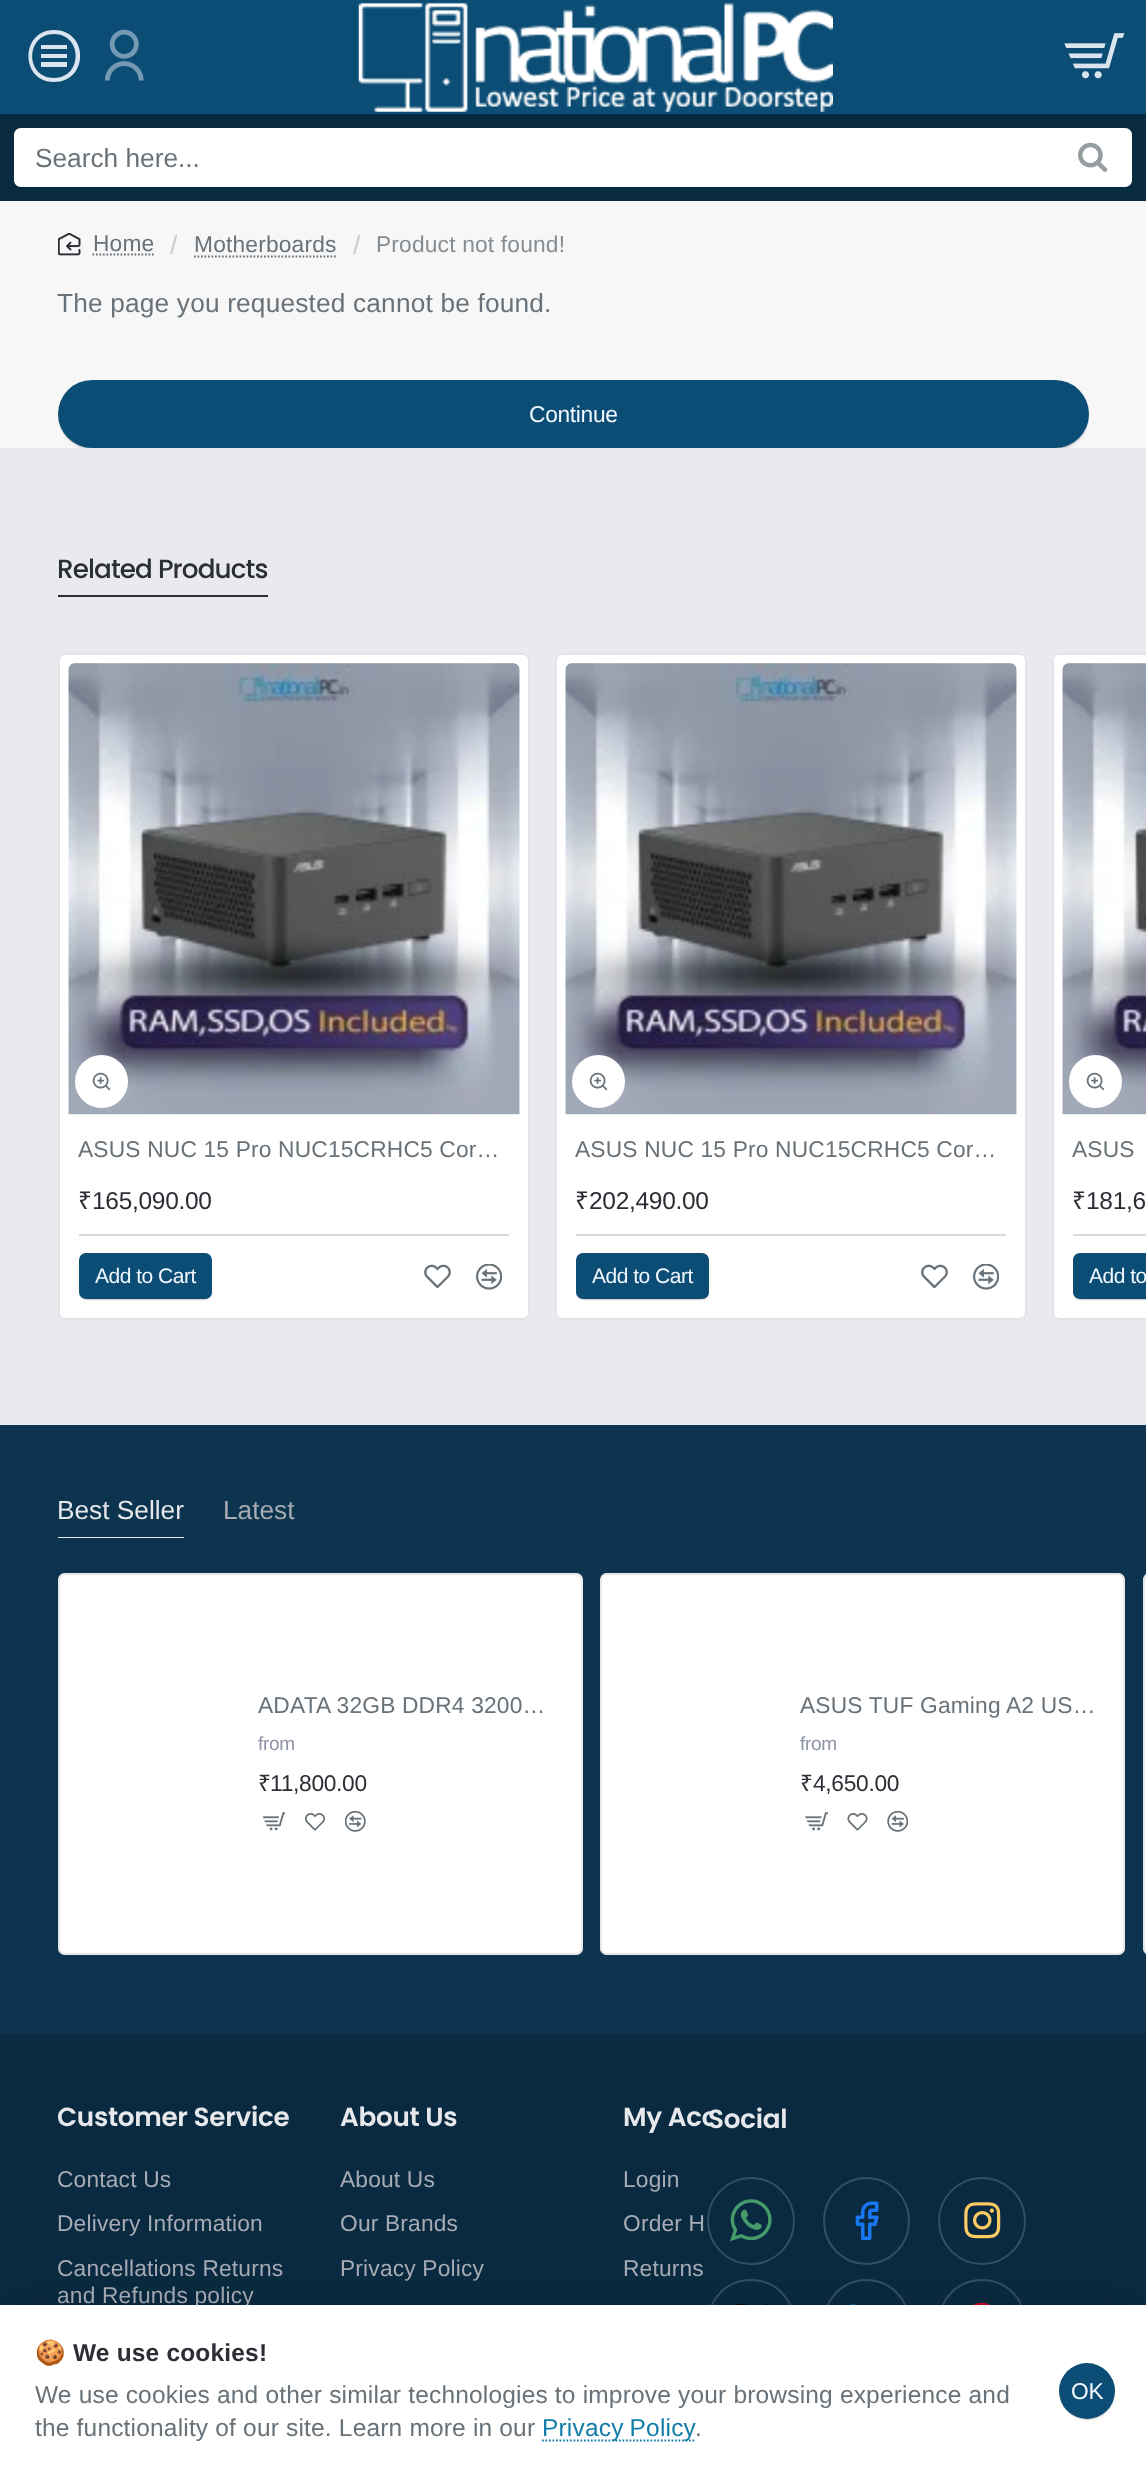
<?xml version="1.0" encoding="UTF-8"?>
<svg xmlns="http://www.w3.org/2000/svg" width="1146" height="2476">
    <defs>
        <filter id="blur1" x="-50%" y="-200%" width="200%" height="500%"><feGaussianBlur stdDeviation="2"/></filter>
        <filter id="blur2" x="-50%" y="-200%" width="200%" height="500%"><feGaussianBlur stdDeviation="1"/></filter>
        <filter id="blur3" x="-50%" y="-200%" width="200%" height="500%"><feGaussianBlur stdDeviation="0.5"/></filter>
        <clipPath id="clip1"><rect x="0" y="2104" width="712" height="341"/></clipPath>
        <filter id="blur4" x="-50%" y="-200%" width="200%" height="500%"><feGaussianBlur stdDeviation="17.5"/></filter>
    </defs>
    <rect width="100%" height="100%" fill="#F7F7F8"/>
    <rect x="0" y="0" width="1146" height="114" fill="#0C4D75"/>
    <path d="M 54 34 C 83 34 83 78 54 78 C 25 78 25 34 54 34 Z M 54 30 C 20 30 20 82 54 82 C 89 82 89 30 54 30 Z M 67 67 H 41 V 62 H 67 Z M 67 58 H 41 V 54 H 67 Z M 67 49 H 41 V 45 H 67 Z" fill="#DBE5F0"/>
    <image x="104" y="29" width="40" height="52" href="img_01.png"/>
    <image x="358" y="2" width="475" height="110" href="img_02.png"/>
    <image x="1064" y="33" width="61" height="46" href="img_03.png"/>
    <rect x="0" y="114" width="1146" height="87" fill="#082B40"/>
    <path d="M 21 128 H 1054 V 187 H 21 C 17 187 14 184 14 180 V 135 C 14 131 17 128 21 128 Z" fill="#FFFFFF"/>
    <text x="35" y="167" font-family="Liberation Sans" font-size="26.25" fill="#697278">Search here...</text>
    <path d="M 1054 128 H 1125 C 1129 128 1132 131 1132 135 V 180 C 1132 184 1129 187 1125 187 H 1054 Z" fill="#FFFFFF"/>
    <image x="1078" y="142" width="30" height="30" href="img_04.png"/>
    <image x="58" y="233" width="23" height="23" href="img_05.png"/>
    <path d="M 92.5 254.5 H 154 M 92.5 254.5 H 154" fill="none" stroke="#697278" stroke-width="1.8" stroke-dasharray="1.75 1.75"/>
    <text x="93" y="251" font-family="Liberation Sans" font-size="22.75" letter-spacing="0.18" fill="#697278">Home</text>
    <text x="170" y="254" font-family="Liberation Sans" font-size="26.25" letter-spacing="0.18" fill="#CCCCCC">/</text>
    <text x="194" y="252" font-family="Liberation Sans" font-size="22.75" letter-spacing="0.18" fill="#697278">Motherboards</text>
    <path d="M 194 256.5 H 336.5" fill="none" stroke="#697278" stroke-width="1.8" stroke-dasharray="1.75 1.75"/>
    <text x="353" y="254" font-family="Liberation Sans" font-size="26.25" letter-spacing="0.18" fill="#CCCCCC">/</text>
    <text x="376" y="252" font-family="Liberation Sans" font-size="22.75" letter-spacing="0.18" fill="#858D92">Product not found!</text>
    <text x="57" y="312" font-family="Liberation Sans" font-size="26.25" letter-spacing="0.18" fill="#697278">The page you requested cannot be found.</text>
    <rect x="65" y="389" width="1022" height="59" rx="29.5" fill="#000000" fill-opacity="0.1" filter="url(#blur1)"/>
    <rect x="61" y="383" width="1026" height="65" rx="32.5" fill="#000000" fill-opacity="0.1" filter="url(#blur2)"/>
    <rect x="58" y="382" width="1031" height="68" rx="34" fill="#000000" fill-opacity="0.1" filter="url(#blur3)"/>
    <rect x="58" y="380" width="1031" height="68" rx="34" fill="#0C4D75"/>
    <text x="529" y="422" font-family="Liberation Sans" font-size="22.75" letter-spacing="-0.3" fill="#F1F8FF">Continue</text>
    <rect x="0" y="448" width="1146" height="977" fill="#E8EAEE"/>
    <rect x="58" y="595" width="210" height="2" fill="#2C2E35"/>
    <text x="57" y="578" font-family="Poppins" font-size="26.25" font-weight="500" letter-spacing="-0.9" fill="#2C2E35">Related Products</text>
    <rect x="58" y="653" width="472" height="667" rx="7" fill="#FFFFFF"/>
    <rect x="59" y="654" width="470" height="665" rx="6" fill="none" stroke="#D7D9E0" stroke-opacity="0.7" stroke-width="2"/>
    <image x="68" y="663" width="452" height="452" href="img_06.png"/>
    <circle cx="101.5" cy="1081.5" r="25.5" fill="#FFFFFF" stroke="#FFFFFF" stroke-width="2"/>
    <image x="92" y="1072" width="19" height="19" href="img_07.png"/>
    <text x="78" y="1157" font-family="Liberation Sans" font-size="22.75" letter-spacing="0.18" fill="#697278">ASUS NUC 15 Pro NUC15CRHC5 Cor…</text>
    <text x="78" y="1209" font-family="Noto Sans" font-size="24.5" letter-spacing="-0.3" fill="#2C2E35">₹</text>
    <text x="92" y="1209" font-family="Liberation Sans" font-size="24.5" letter-spacing="-0.3" fill="#2C2E35">165,090.00</text>
    <rect x="79" y="1234" width="430" height="2" fill="#D7D9E0"/>
    <rect x="86" y="1262" width="124" height="37" rx="2.5" fill="#000000" fill-opacity="0.1" filter="url(#blur1)"/>
    <rect x="82" y="1257" width="128" height="42" rx="5" fill="#000000" fill-opacity="0.1" filter="url(#blur2)"/>
    <rect x="79" y="1255" width="133" height="45" rx="7" fill="#000000" fill-opacity="0.1" filter="url(#blur3)"/>
    <rect x="79" y="1253" width="133" height="46" rx="7" fill="#0C4D75"/>
    <text x="95" y="1283" font-family="Liberation Sans" font-size="21" letter-spacing="-0.5" fill="#F1F8FF">Add to Cart</text>
    <image x="424" y="1264" width="27" height="25" href="img_08.png"/>
    <image x="476" y="1264" width="26" height="26" href="img_09.png"/>
    <rect x="555" y="653" width="472" height="667" rx="7" fill="#FFFFFF"/>
    <rect x="556" y="654" width="470" height="665" rx="6" fill="none" stroke="#D7D9E0" stroke-opacity="0.7" stroke-width="2"/>
    <image x="565" y="663" width="452" height="452" href="img_06.png"/>
    <circle cx="598.5" cy="1081.5" r="25.5" fill="#FFFFFF" stroke="#FFFFFF" stroke-width="2"/>
    <image x="589" y="1072" width="19" height="19" href="img_07.png"/>
    <text x="575" y="1157" font-family="Liberation Sans" font-size="22.75" letter-spacing="0.18" fill="#697278">ASUS NUC 15 Pro NUC15CRHC5 Cor…</text>
    <text x="575" y="1209" font-family="Noto Sans" font-size="24.5" letter-spacing="-0.3" fill="#2C2E35">₹</text>
    <text x="589" y="1209" font-family="Liberation Sans" font-size="24.5" letter-spacing="-0.3" fill="#2C2E35">202,490.00</text>
    <rect x="576" y="1234" width="430" height="2" fill="#D7D9E0"/>
    <rect x="583" y="1262" width="124" height="37" rx="2.5" fill="#000000" fill-opacity="0.1" filter="url(#blur1)"/>
    <rect x="579" y="1257" width="128" height="42" rx="5" fill="#000000" fill-opacity="0.1" filter="url(#blur2)"/>
    <rect x="576" y="1255" width="133" height="45" rx="7" fill="#000000" fill-opacity="0.1" filter="url(#blur3)"/>
    <rect x="576" y="1253" width="133" height="46" rx="7" fill="#0C4D75"/>
    <text x="592" y="1283" font-family="Liberation Sans" font-size="21" letter-spacing="-0.5" fill="#F1F8FF">Add to Cart</text>
    <image x="921" y="1264" width="27" height="25" href="img_08.png"/>
    <image x="973" y="1264" width="26" height="26" href="img_09.png"/>
    <path d="M 1059 653 H 1146 V 1320 H 1059 C 1055 1320 1052 1317 1052 1313 V 660 C 1052 656 1055 653 1059 653 Z" fill="#FFFFFF"/>
    <rect x="1053" y="654" width="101" height="665" rx="6" fill="none" stroke="#D7D9E0" stroke-opacity="0.7" stroke-width="2"/>
    <image x="1062" y="663" width="84" height="452" href="img_10.png"/>
    <circle cx="1095.5" cy="1081.5" r="25.5" fill="#FFFFFF" stroke="#FFFFFF" stroke-width="2"/>
    <image x="1086" y="1072" width="19" height="19" href="img_07.png"/>
    <text x="1072" y="1157" font-family="Liberation Sans" font-size="22.75" letter-spacing="0.18" fill="#697278">ASUS</text>
    <text x="1072" y="1209" font-family="Noto Sans" font-size="24.5" letter-spacing="-0.3" fill="#2C2E35">₹</text>
    <text x="1086" y="1209" font-family="Liberation Sans" font-size="24.5" letter-spacing="-0.3" fill="#2C2E35">181,6</text>
    <rect x="1073" y="1234" width="73" height="2" fill="#D7D9E0"/>
    <rect x="1080" y="1262" width="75" height="37" rx="2.5" fill="#000000" fill-opacity="0.1" filter="url(#blur1)"/>
    <rect x="1076" y="1257" width="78" height="42" rx="5" fill="#000000" fill-opacity="0.1" filter="url(#blur2)"/>
    <rect x="1073" y="1255" width="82" height="45" rx="7" fill="#000000" fill-opacity="0.1" filter="url(#blur3)"/>
    <path d="M 1080 1253 H 1146 V 1299 H 1080 C 1076 1299 1073 1296 1073 1292 V 1260 C 1073 1256 1076 1253 1080 1253 Z" fill="#0C4D75"/>
    <text x="1089" y="1283" font-family="Liberation Sans" font-size="21" letter-spacing="-0.5" fill="#F1F8FF">Add to</text>
    <rect x="0" y="2034" width="1146" height="271" fill="#092A40"/>
    <rect x="0" y="1425" width="1146" height="609" fill="#0C344E"/>
    <rect x="58" y="1537" width="126" height="1" fill="#E6E8EB"/>
    <text x="57" y="1519" font-family="Liberation Sans" font-size="26.25" fill="#E6E8EB">Best Seller</text>
    <text x="223" y="1519" font-family="Liberation Sans" font-size="26.25" fill="#A7ABB4">Latest</text>
    <rect x="58" y="1573" width="525" height="382" rx="7" fill="#FFFFFF"/>
    <rect x="59" y="1574" width="523" height="380" rx="6" fill="none" stroke="#D7D9E0" stroke-opacity="0.6" stroke-width="2"/>
    <text x="258" y="1713" font-family="Liberation Sans" font-size="22.75" letter-spacing="0.18" fill="#697278">ADATA 32GB DDR4 3200…</text>
    <text x="258" y="1750" font-family="Liberation Sans" font-size="19" letter-spacing="-0.3" fill="#8D93A5">from</text>
    <text x="258" y="1791" font-family="Noto Sans" font-size="22.75" letter-spacing="-0.3" fill="#2C2E35">₹</text>
    <text x="270" y="1791" font-family="Liberation Sans" font-size="22.75" letter-spacing="-0.3" fill="#2C2E35">11,800.00</text>
    <image x="263" y="1812" width="22" height="19" href="img_11.png"/>
    <image x="305" y="1813" width="20" height="18" href="img_12.png"/>
    <image x="345" y="1811" width="21" height="21" href="img_13.png"/>
    <rect x="600" y="1573" width="525" height="382" rx="7" fill="#FFFFFF"/>
    <rect x="601" y="1574" width="523" height="380" rx="6" fill="none" stroke="#D7D9E0" stroke-opacity="0.6" stroke-width="2"/>
    <text x="800" y="1713" font-family="Liberation Sans" font-size="22.75" letter-spacing="0.18" fill="#697278">ASUS TUF Gaming A2 US…</text>
    <text x="800" y="1750" font-family="Liberation Sans" font-size="19" letter-spacing="-0.3" fill="#8D93A5">from</text>
    <text x="800" y="1791" font-family="Noto Sans" font-size="22.75" letter-spacing="-0.3" fill="#2C2E35">₹</text>
    <text x="813" y="1791" font-family="Liberation Sans" font-size="22.75" letter-spacing="-0.3" fill="#2C2E35">4,650.00</text>
    <image x="805" y="1812" width="23" height="19" href="img_14.png"/>
    <image x="847" y="1813" width="21" height="18" href="img_15.png"/>
    <image x="887" y="1811" width="21" height="21" href="img_16.png"/>
    <path d="M 1150 1573 H 1146 V 1955 H 1150 C 1146 1955 1143 1952 1143 1948 V 1580 C 1143 1576 1146 1573 1150 1573 Z" fill="#FFFFFF"/>
    <rect x="1144" y="1574" width="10" height="380" rx="6" fill="none" stroke="#D7D9E0" stroke-opacity="0.6" stroke-width="2"/>
    <text x="57" y="2126" font-family="Poppins" font-size="26.25" font-weight="600" letter-spacing="-0.3" fill="#E6E8EB">Customer Service</text>
    <text font-family="Liberation Sans" font-size="22.75" letter-spacing="0.18" fill="#A7ABB4">
        <tspan x="57" y="2187">Contact Us</tspan>
        <tspan x="57" y="2231">Delivery Information</tspan>
        <tspan x="57" y="2276">Cancellations Returns</tspan>
        <tspan x="57" y="2303">and Refunds policy</tspan>
    </text>
    <text x="340" y="2126" font-family="Poppins" font-size="26.25" font-weight="600" letter-spacing="-0.3" fill="#E6E8EB">About Us</text>
    <text font-family="Liberation Sans" font-size="22.75" letter-spacing="0.18" fill="#A7ABB4">
        <tspan x="340" y="2187">About Us</tspan>
        <tspan x="340" y="2231">Our Brands</tspan>
        <tspan x="340" y="2276">Privacy Policy</tspan>
    </text>
    <text x="708" y="2128" font-family="Poppins" font-size="26.25" font-weight="600" letter-spacing="-0.3" fill="#E6E8EB">Social</text>
    <g clip-path="url(#clip1)">
        <text x="623" y="2126" font-family="Poppins" font-size="26.25" font-weight="600" letter-spacing="-0.3" fill="#E6E8EB">My Acc</text>
    </g>
    <text font-family="Liberation Sans" font-size="22.75" letter-spacing="0.18" fill="#A7ABB4">
        <tspan x="623" y="2187">Login</tspan>
        <tspan x="623" y="2231">Order H</tspan>
        <tspan x="623" y="2276">Returns</tspan>
    </text>
    <circle cx="751" cy="2221" r="43" fill="none" stroke="#325062" stroke-width="2"/>
    <image x="730" y="2199" width="42" height="43" href="img_17.png"/>
    <rect x="824" y="2178" width="85" height="86" rx="42.5" fill="none" stroke="#325062" stroke-width="2"/>
    <image x="855" y="2201" width="24" height="39" href="img_18.png"/>
    <circle cx="982" cy="2221" r="43" fill="none" stroke="#325062" stroke-width="2"/>
    <image x="964" y="2202" width="37" height="37" href="img_19.png"/>
    <rect x="708" y="2280" width="86" height="85" rx="42.5" fill="none" stroke="#325062" stroke-width="2"/>
    <image x="735" y="2304" width="35" height="1" href="img_20.png"/>
    <circle cx="866.5" cy="2322.5" r="42.5" fill="none" stroke="#325062" stroke-width="2"/>
    <image x="850" y="2304" width="6" height="1" href="img_21.png"/>
    <rect x="939" y="2280" width="86" height="85" rx="42.5" fill="none" stroke="#325062" stroke-width="2"/>
    <image x="973" y="2302" width="18" height="3" href="img_22.png"/>
    <rect x="12" y="2300" width="1122" height="147" fill="#000000" fill-opacity="0.1" filter="url(#blur4)"/>
    <rect x="0" y="2305" width="1146" height="171" fill="#FFFFFF"/>
    <text x="35" y="2361" font-family="Noto Color Emoji" font-size="24.5" font-weight="700" letter-spacing="0.18" fill="#2C2E35">🍪</text>
    <text x="73" y="2361" font-family="Liberation Sans" font-size="24.5" font-weight="700" letter-spacing="0.18" fill="#2C2E35">We use cookies!</text>
    <text font-family="Liberation Sans" font-size="24.5" letter-spacing="0.18" fill="#697278">
        <tspan x="35" y="2403">We use cookies and other similar technologies to improve your browsing experience and</tspan>
        <tspan x="35" y="2436">the functionality of our site. Learn more in our</tspan>
    </text>
    <path d="M 542 2440.5 H 695" fill="none" stroke="#127DA8" stroke-width="1.8" stroke-dasharray="1.75 1.75"/>
    <text x="542" y="2436" word-spacing="-1" font-family="Liberation Sans" font-size="24.5" letter-spacing="0.18" fill="#127DA8">Privacy Policy</text>
    <text x="695" y="2436" font-family="Liberation Sans" font-size="24.5" letter-spacing="0.18" fill="#697278">.</text>
    <rect x="1066" y="2371" width="47" height="48" rx="23.5" fill="#000000" fill-opacity="0.1" filter="url(#blur1)"/>
    <rect x="1062" y="2366" width="51" height="53" rx="25.5" fill="#000000" fill-opacity="0.1" filter="url(#blur2)"/>
    <rect x="1059" y="2364" width="56" height="56" rx="28" fill="#000000" fill-opacity="0.1" filter="url(#blur3)"/>
    <circle cx="1087" cy="2391" r="28" fill="#0C4D75"/>
    <text x="1071" y="2399" font-family="Liberation Sans" font-size="22.75" letter-spacing="-0.3" fill="#F1F8FF">OK</text>
</svg>
